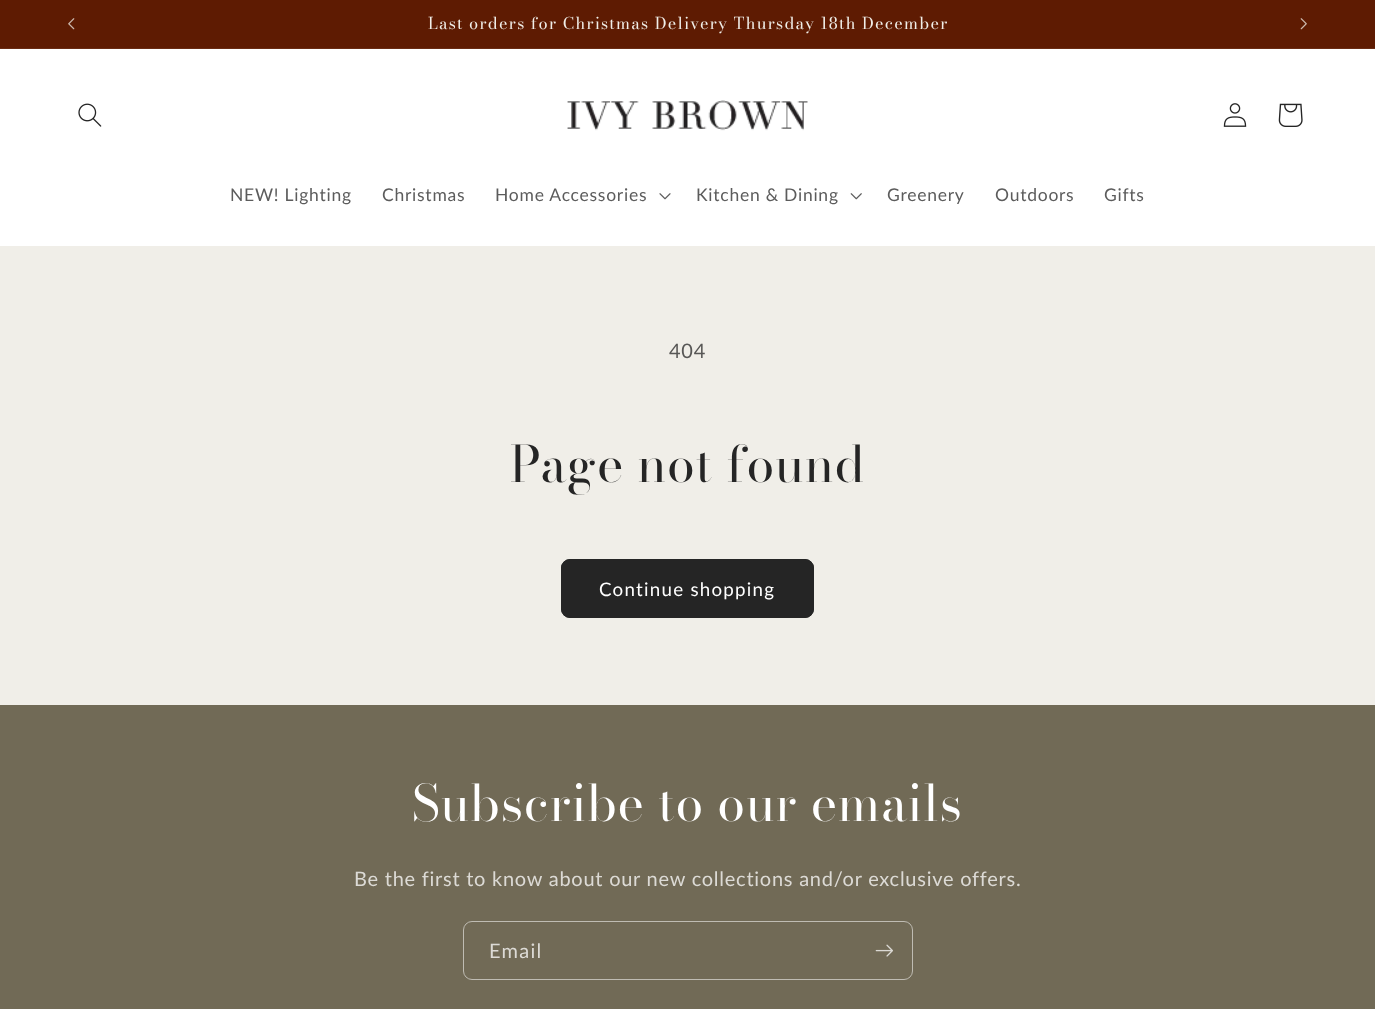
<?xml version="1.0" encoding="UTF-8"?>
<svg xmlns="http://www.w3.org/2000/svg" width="1375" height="1009">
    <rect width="100%" height="100%" fill="#F0EEE8"/>
    <rect x="0" y="0" width="1375" height="48" fill="#5E1B02"/>
    <rect x="0" y="48" width="1375" height="1" fill="#6A2C14"/>
    <image x="68" y="18" width="7" height="12" href="img_01.png"/>
    <text x="428" y="29" font-family="'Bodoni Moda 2'" font-size="16.25" letter-spacing="1.25" fill="#F0EEE8">Last orders for Christmas Delivery Thursday 18th December</text>
    <image x="1300" y="18" width="7" height="12" href="img_02.png"/>
    <rect x="0" y="49" width="1375" height="197" fill="#FFFFFF"/>
    <image x="78" y="103" width="24" height="24" href="img_03.png"/>
    <image x="567" y="100" width="241" height="31" href="img_04.png"/>
    <image x="1223" y="103" width="24" height="24" href="img_05.png"/>
    <image x="1278" y="103" width="25" height="24" href="img_06.png"/>
    <text x="230" y="201" font-family="Lato" font-size="17.5" letter-spacing="0.75" fill="#5C5C5C">NEW! Lighting</text>
    <text x="382" y="201" font-family="Lato" font-size="17.5" letter-spacing="0.75" fill="#5C5C5C">Christmas</text>
    <text x="495" y="201" font-family="Lato" font-size="17.5" letter-spacing="0.75" fill="#5C5C5C">Home Accessories</text>
    <image x="659" y="193" width="12" height="7" href="img_07.png"/>
    <text x="696" y="201" font-family="Lato" font-size="17.5" letter-spacing="0.75" fill="#5C5C5C">Kitchen &amp; Dining</text>
    <image x="850" y="193" width="12" height="7" href="img_08.png"/>
    <text x="887" y="201" font-family="Lato" font-size="17.5" letter-spacing="0.75" fill="#5C5C5C">Greenery</text>
    <text x="995" y="201" font-family="Lato" font-size="17.5" letter-spacing="0.75" fill="#5C5C5C">Outdoors</text>
    <text x="1104" y="201" font-family="Lato" font-size="17.5" letter-spacing="0.75" fill="#5C5C5C">Gifts</text>
    <text x="669" y="358" font-family="Lato" font-size="20" letter-spacing="0.75" fill="#585756">404</text>
    <text x="510" y="482" font-family="Bodoni Moda" font-size="50" letter-spacing="0.75" fill="#252525">Page not found</text>
    <rect x="561" y="559" width="253" height="59" rx="9" fill="#252525"/>
    <rect x="561.5" y="559.5" width="252" height="58" rx="8.5" fill="none" stroke="#252525"/>
    <text x="599" y="596" font-family="Lato" font-size="18.75" letter-spacing="1.25" fill="#FFFFFF">Continue shopping</text>
    <rect x="0" y="705" width="1375" height="304" fill="#716A56"/>
    <text x="412" y="821" font-family="Bodoni Moda" font-size="50" letter-spacing="0.75" fill="#FFFFFF">Subscribe to our emails</text>
    <text x="354" y="886" font-family="Lato" font-size="20" letter-spacing="0.75" fill="#DCDAD5">Be the first to know about our new collections and/or exclusive offers.</text>
    <rect x="463.5" y="921.5" width="449" height="58" rx="8.5" fill="none" stroke="#BFBCB3"/>
    <text x="489" y="958" font-family="Lato" font-size="20" letter-spacing="1.25" fill="#DCDAD5">Email</text>
    <image x="875" y="944" width="18" height="13" href="img_09.png"/>
</svg>
